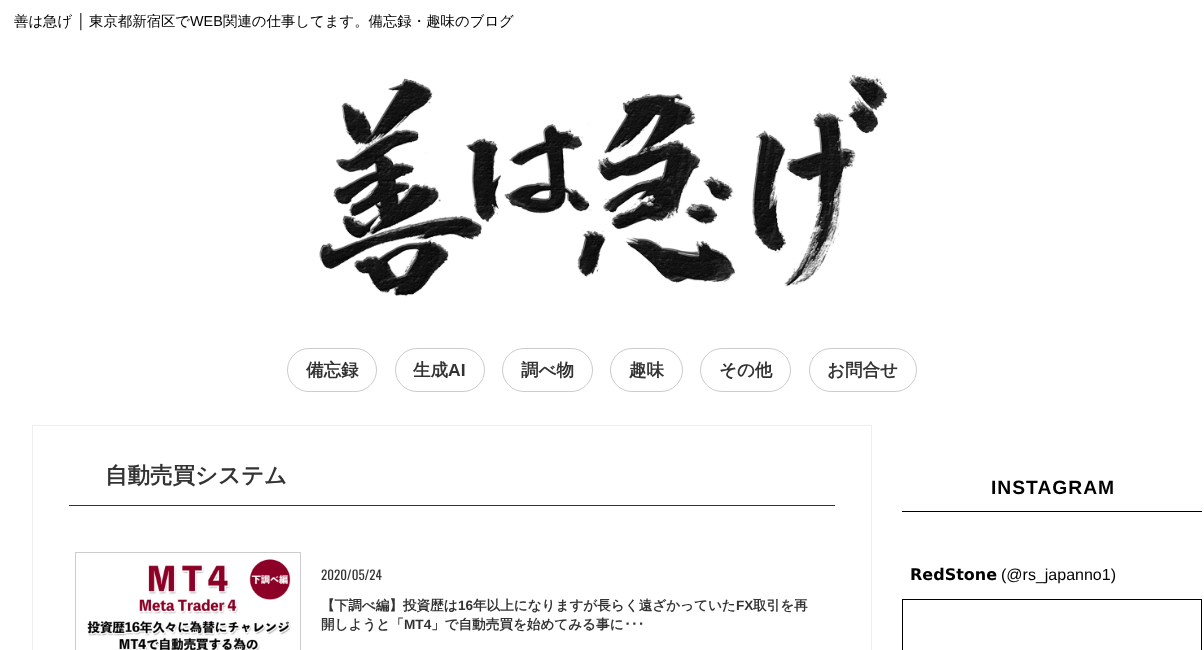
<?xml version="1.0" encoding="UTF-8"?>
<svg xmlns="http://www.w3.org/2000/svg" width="1204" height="650">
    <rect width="100%" height="100%" fill="#FFFFFF"/>
    <text x="14" y="26" font-family="WenQuanYi Zen Hei" font-size="14.4" font-weight="500" fill="#000000">善は急げ</text>
    <text x="77" y="26" font-family="Liberation Sans" font-size="14.4" fill="#000000">│</text>
    <text x="89" y="26" font-family="WenQuanYi Zen Hei" font-size="14.4" font-weight="500" fill="#000000">東京都新宿区で</text>
    <text x="190" y="26" font-family="Liberation Sans" font-size="14.4" fill="#000000">WEB</text>
    <text x="223" y="26" font-family="WenQuanYi Zen Hei" font-size="14.4" font-weight="500" fill="#000000">関連の仕事してます。備忘録・趣味のブログ</text>
    <image x="319" y="74" width="569" height="223" href="img_01.png"/>
    <rect x="287.5" y="348.5" width="89" height="43" rx="21.5" fill="none" stroke="#CCCCCC"/>
    <text x="306" y="376" font-family="WenQuanYi Zen Hei" font-size="17.5" font-weight="700" fill="#333333">備忘録</text>
    <rect x="395.5" y="348.5" width="89" height="43" rx="21.5" fill="none" stroke="#CCCCCC"/>
    <text x="413" y="376" font-family="WenQuanYi Zen Hei" font-size="17.5" font-weight="700" fill="#333333">生成</text>
    <text x="448" y="376" font-family="Liberation Sans" font-size="17.5" font-weight="700" fill="#333333">AI</text>
    <rect x="502.5" y="348.5" width="90" height="43" rx="21.5" fill="none" stroke="#CCCCCC"/>
    <text x="521" y="376" font-family="WenQuanYi Zen Hei" font-size="17.5" font-weight="700" fill="#333333">調べ物</text>
    <rect x="610.5" y="348.5" width="72" height="43" rx="21.5" fill="none" stroke="#CCCCCC"/>
    <text x="629" y="376" font-family="WenQuanYi Zen Hei" font-size="17.5" font-weight="700" fill="#333333">趣味</text>
    <rect x="700.5" y="348.5" width="90" height="43" rx="21.5" fill="none" stroke="#CCCCCC"/>
    <text x="719" y="376" font-family="WenQuanYi Zen Hei" font-size="17.5" font-weight="700" fill="#333333">その他</text>
    <rect x="809.5" y="348.5" width="107" height="43" rx="21.5" fill="none" stroke="#CCCCCC"/>
    <text x="827" y="376" font-family="WenQuanYi Zen Hei" font-size="17.5" font-weight="700" fill="#333333">お問合せ</text>
    <rect x="32.5" y="425.5" width="839" height="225" fill="none" stroke="#EEEEEE"/>
    <rect x="69" y="505" width="766" height="1" fill="#333333"/>
    <text x="105" y="483" font-family="WenQuanYi Zen Hei" font-size="22.5" font-weight="700" fill="#333333">自動売買システム</text>
    <rect x="75.5" y="552.5" width="225" height="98" fill="none" stroke="#CCCCCC"/>
    <image x="87" y="559" width="204" height="91" href="img_02.png"/>
    <text x="321" y="580" font-family="Oswald" font-size="13" fill="#333333">2020/05/24</text>
    <text x="321" y="610" font-family="WenQuanYi Zen Hei" font-size="13.6" font-weight="700" fill="#333333">【下調べ編】投資歴は</text>
    <text x="458" y="610" font-family="Liberation Sans" font-size="13.6" font-weight="700" fill="#333333">16</text>
    <text x="473" y="610" font-family="WenQuanYi Zen Hei" font-size="13.6" font-weight="700" fill="#333333">年以上になりますが長らく遠ざかっていた</text>
    <text x="736" y="610" font-family="Liberation Sans" font-size="13.6" font-weight="700" fill="#333333">FX</text>
    <text x="753" y="610" font-family="WenQuanYi Zen Hei" font-size="13.6" font-weight="700" fill="#333333">取引を再</text>
    <text x="321" y="629" font-family="WenQuanYi Zen Hei" font-size="13.6" font-weight="700" fill="#333333">開しようと「</text>
    <text x="404" y="629" font-family="Liberation Sans" font-size="13.6" font-weight="700" fill="#333333">MT4</text>
    <text x="431" y="629" font-family="WenQuanYi Zen Hei" font-size="13.6" font-weight="700" fill="#333333">」で自動売買を始めてみる事に</text>
    <text x="624" y="629" font-family="IPAPGothic" font-size="13.6" font-weight="700" fill="#333333">･･･</text>
    <rect x="902" y="511" width="300" height="1" fill="#000000"/>
    <text x="991" y="494" font-family="Liberation Sans" font-size="19.25" font-weight="700" letter-spacing="1" fill="#000000">INSTAGRAM</text>
    <text x="910" y="580" font-family="DejaVu Sans" font-size="16" font-weight="700" fill="#000000">𝗥𝗲𝗱𝗦𝘁𝗼𝗻𝗲</text>
    <text x="1001" y="580" font-family="Liberation Sans" font-size="16" fill="#000000">(@rs_japanno1)</text>
    <rect x="902.5" y="599.5" width="299" height="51" fill="none" stroke="#000000"/>
</svg>
